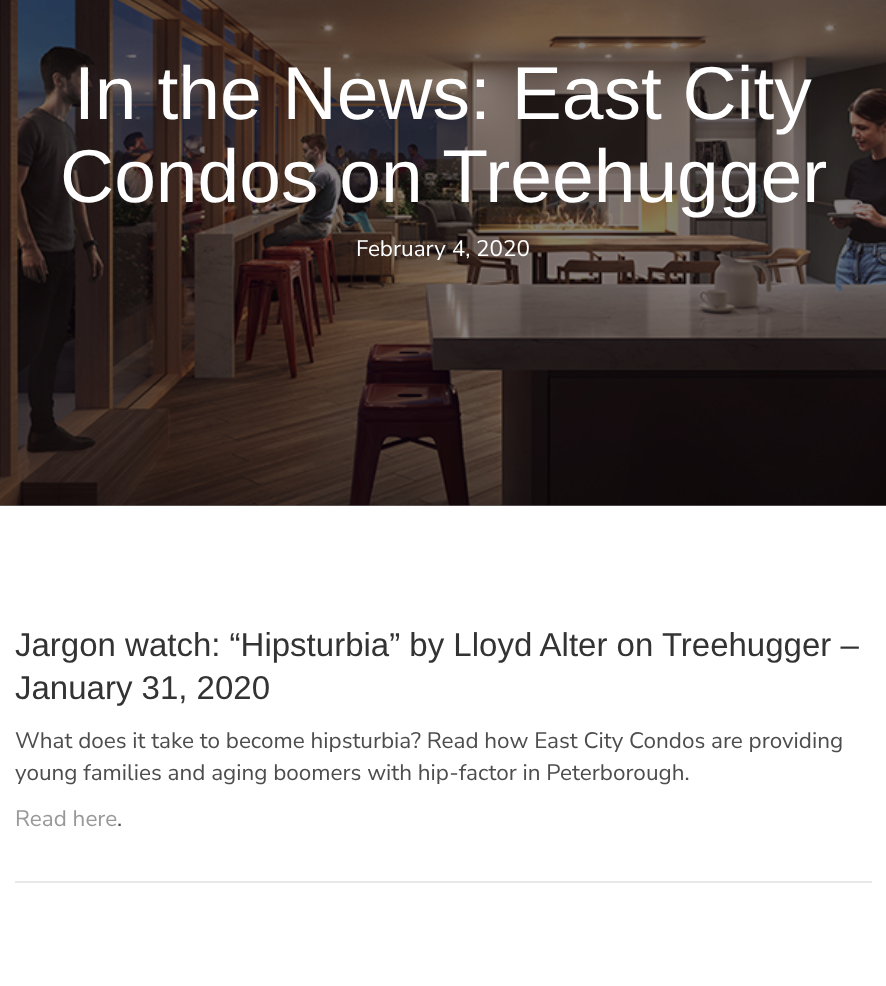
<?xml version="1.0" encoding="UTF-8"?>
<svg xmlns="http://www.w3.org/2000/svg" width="886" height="986">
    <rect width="100%" height="100%" fill="#FFFFFF"/>
    <rect x="0" y="505" width="886" height="1" fill="#858080"/>
    <image x="0" y="0" width="886" height="506" href="img_01.png"/>
    <text x="74" y="119" font-family="Liberation Sans" font-size="75" fill="#FFFFFF">In the News: East City</text>
    <text x="60" y="202" font-family="Liberation Sans" font-size="75" fill="#FFFFFF">Condos on Treehugger</text>
    <text x="356" y="256" font-family="Nunito Sans" font-size="22.5" fill="#FFFFFF">February 4, 2020</text>
    <text font-family="Liberation Sans" font-size="33" fill="#333333">
        <tspan x="15" y="656">Jargon watch: “Hipsturbia” by Lloyd Alter on Treehugger –</tspan>
        <tspan x="15" y="699">January 31, 2020</tspan>
    </text>
    <text font-family="Nunito Sans" font-size="22.5" fill="#4D4D4D">
        <tspan x="15" y="748">What does it take to become hipsturbia? Read how East City Condos are providing</tspan>
        <tspan x="15" y="780">young families and aging boomers with hip-factor in Peterborough.</tspan>
    </text>
    <text x="15" y="826" font-family="Nunito Sans" font-size="22.5" fill="#999999">Read here</text>
    <text x="117" y="826" font-family="Nunito Sans" font-size="22.5" fill="#4D4D4D">.</text>
    <rect x="15" y="881" width="857" height="2" fill="#E8E8E8"/>
</svg>
